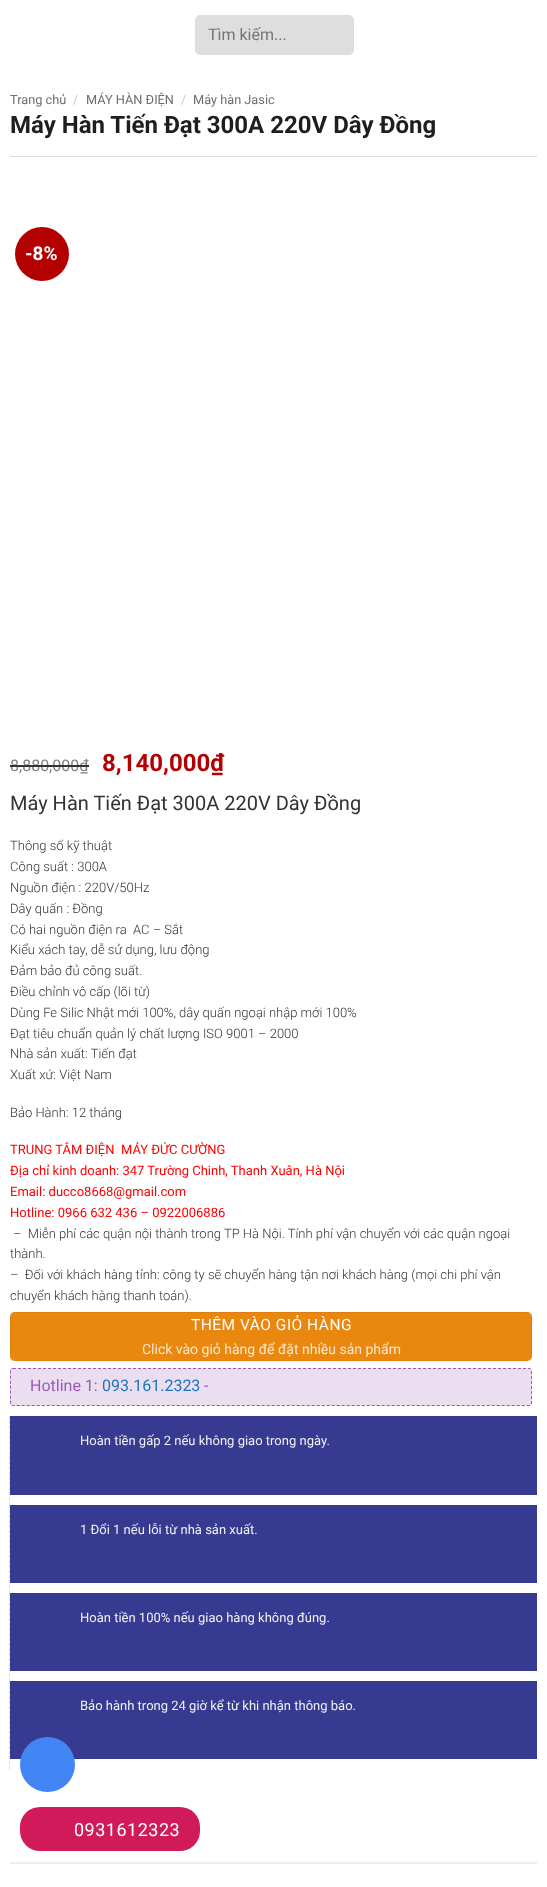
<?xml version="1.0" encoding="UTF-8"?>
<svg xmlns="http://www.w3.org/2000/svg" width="547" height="1887">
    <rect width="100%" height="100%" fill="#FFFFFF"/>
    <rect x="195.5" y="15.5" width="158" height="39" rx="4.5" fill="#DEDEDE" stroke="#DDDDDD"/>
    <text x="208" y="40" font-family="Roboto" font-size="16" fill="#757575">Tìm kiếm...</text>
    <text x="10" y="104" font-family="Roboto" font-size="12.75" fill="#6E6E6E">Trang chủ</text>
    <text x="73" y="104" font-family="Roboto" font-size="12.75" font-weight="300" fill="#B2B2B2">/</text>
    <text x="86" y="104" font-family="Roboto" font-size="12.75" fill="#6E6E6E">MÁY HÀN ĐIỆN</text>
    <text x="181" y="104" font-family="Roboto" font-size="12.75" font-weight="300" fill="#B2B2B2">/</text>
    <text x="193" y="104" font-family="Roboto" font-size="12.75" fill="#6E6E6E">Máy hàn Jasic</text>
    <rect x="10" y="156" width="527" height="1" fill="#DDDDDD"/>
    <text x="10" y="133" font-family="Roboto" font-size="24" font-weight="700" fill="#1E1E1E">Máy Hàn Tiến Đạt 300A 220V Dây Đồng</text>
    <circle cx="42" cy="254" r="27" fill="#B30000"/>
    <text x="25" y="260" font-family="Roboto" font-size="19" font-weight="700" fill="#FFFFFF">-8%</text>
    <text x="10" y="771" font-family="Roboto" font-size="16" fill="#808080">8,880,000₫</text>
    <rect x="10" y="765" width="79" height="2" fill="#333333"/>
    <text x="102" y="771" font-family="Roboto" font-size="24" font-weight="700" fill="#B30000">8,140,000₫</text>
    <text x="10" y="810" font-family="Roboto" font-size="20" fill="#333333">Máy Hàn Tiến Đạt 300A 220V Dây Đồng</text>
    <text font-family="Roboto" font-size="13" font-weight="300" fill="#333333" xml:space="preserve"><tspan x="10" y="850">Thông số kỹ thuật</tspan><tspan x="10" y="871">Công suất : 300A</tspan><tspan x="10" y="892">Nguồn điện : 220V/50Hz</tspan><tspan x="10" y="913">Dây quấn : Đồng</tspan><tspan x="10" y="934">Có hai nguồn điện ra  AC – Sắt</tspan><tspan x="10" y="954">Kiểu xách tay, dễ sử dụng, lưu động</tspan><tspan x="10" y="975">Đảm bảo đủ công suất.</tspan><tspan x="10" y="996">Điều chỉnh vô cấp (lõi từ)</tspan><tspan x="10" y="1017">Dùng Fe Silic Nhật mới 100%, dây quấn ngoại nhập mới 100%</tspan><tspan x="10" y="1038">Đạt tiêu chuẩn quản lý chất lượng ISO 9001 – 2000</tspan><tspan x="10" y="1058">Nhà sản xuất: Tiến đạt</tspan><tspan x="10" y="1079">Xuất xứ: Việt Nam</tspan></text>
    <text x="10" y="1117" font-family="Roboto" font-size="13" font-weight="300" fill="#333333">Bảo Hành: 12 tháng</text>
    <text font-family="Roboto" font-size="13" fill="#FF0000" xml:space="preserve"><tspan x="10" y="1154">TRUNG TÂM ĐIỆN  MÁY ĐỨC CƯỜNG</tspan><tspan x="10" y="1175">Địa chỉ kinh doanh: 347 Trường Chinh, Thanh Xuân, Hà Nội</tspan><tspan x="10" y="1196">Email: ducco8668@gmail.com</tspan><tspan x="10" y="1217">Hotline: 0966 632 436 – 0922006886</tspan></text>
    <text x="13" y="1238" font-family="Roboto" font-size="13" font-weight="300" fill="#333333" xml:space="preserve">–  Miễn phí các quận nội thành trong TP Hà Nội. Tính phí vận chuyển với các quận ngoại</text>
    <text font-family="Roboto" font-size="13" font-weight="300" fill="#333333" xml:space="preserve"><tspan x="10" y="1258">thành.</tspan><tspan x="10" y="1279">–  Đối với khách hàng tỉnh: công ty sẽ chuyển hàng tận nơi khách hàng (mọi chi phí vận</tspan><tspan x="10" y="1300">chuyển khách hàng thanh toán).</tspan></text>
    <rect x="10" y="1312" width="522" height="49" rx="5" fill="#EA870E"/>
    <rect x="10.5" y="1312.5" width="521" height="48" fill="none" stroke="#000000" stroke-opacity="0.05"/>
    <text x="191" y="1330" font-family="Roboto" font-size="15.5" letter-spacing="0.5" fill="#FFFFFF">THÊM VÀO GIỎ HÀNG</text>
    <text x="142" y="1354" font-family="Roboto" font-size="14" fill="#FBE7CF">Click vào giỏ hàng để đặt nhiều sản phẩm</text>
    <rect x="10" y="1368" width="522" height="38" rx="3" fill="#EBDEF0"/>
    <path d="M 13 1368.5 H 529 C 530.5 1368.5 531.5 1369.5 531.5 1371 V 1403 C 531.5 1404.5 530.5 1405.5 529 1405.5 H 13 C 11.5 1405.5 10.5 1404.5 10.5 1403 V 1371 C 10.5 1369.5 11.5 1368.5 13 1368.5 Z" fill="none" stroke="#9B59B6" stroke-dasharray="3 2"/>
    <text x="30" y="1391" font-family="Roboto" font-size="16" fill="#9B59B6">Hotline 1:</text>
    <text x="102" y="1391" font-family="Roboto" font-size="16" fill="#1E73BE">093.161.2323</text>
    <text x="204" y="1391" font-family="Roboto" font-size="16" fill="#9B59B6">-</text>
    <path d="M 9.5 1416 V 1505" fill="none" stroke="#DDDDDD" stroke-dasharray="3 2.06"/>
    <rect x="10" y="1416" width="527" height="79" fill="#363A90"/>
    <text x="80" y="1445" font-family="Roboto" font-size="13" fill="#F1F1F1">Hoàn tiền gấp 2 nếu không giao trong ngày.</text>
    <path d="M 9.5 1505 V 1593" fill="none" stroke="#DDDDDD" stroke-dasharray="3 2"/>
    <rect x="10" y="1505" width="527" height="78" fill="#363A90"/>
    <text x="80" y="1534" font-family="Roboto" font-size="13" fill="#F1F1F1">1 Đổi 1 nếu lỗi từ nhà sản xuất.</text>
    <path d="M 9.5 1593 V 1681" fill="none" stroke="#DDDDDD" stroke-dasharray="3 2"/>
    <rect x="10" y="1593" width="527" height="78" fill="#363A90"/>
    <text x="80" y="1622" font-family="Roboto" font-size="13" fill="#F1F1F1">Hoàn tiền 100% nếu giao hàng không đúng.</text>
    <path d="M 9.5 1681 V 1769" fill="none" stroke="#DDDDDD" stroke-dasharray="3 2"/>
    <rect x="10" y="1681" width="527" height="78" fill="#363A90"/>
    <text x="80" y="1710" font-family="Roboto" font-size="13" fill="#F1F1F1">Bảo hành trong 24 giờ kể từ khi nhận thông báo.</text>
    <rect x="10" y="1862" width="527" height="2" fill="#EDEDED"/>
    <circle cx="47.5" cy="1764.5" r="27.5" fill="#4285F4"/>
    <rect x="20" y="1807" width="180" height="44" rx="20" fill="#D11A59"/>
    <text x="74" y="1836" font-family="Roboto" font-size="18" letter-spacing="0.5" fill="#FFFFFF">0931612323</text>
</svg>
